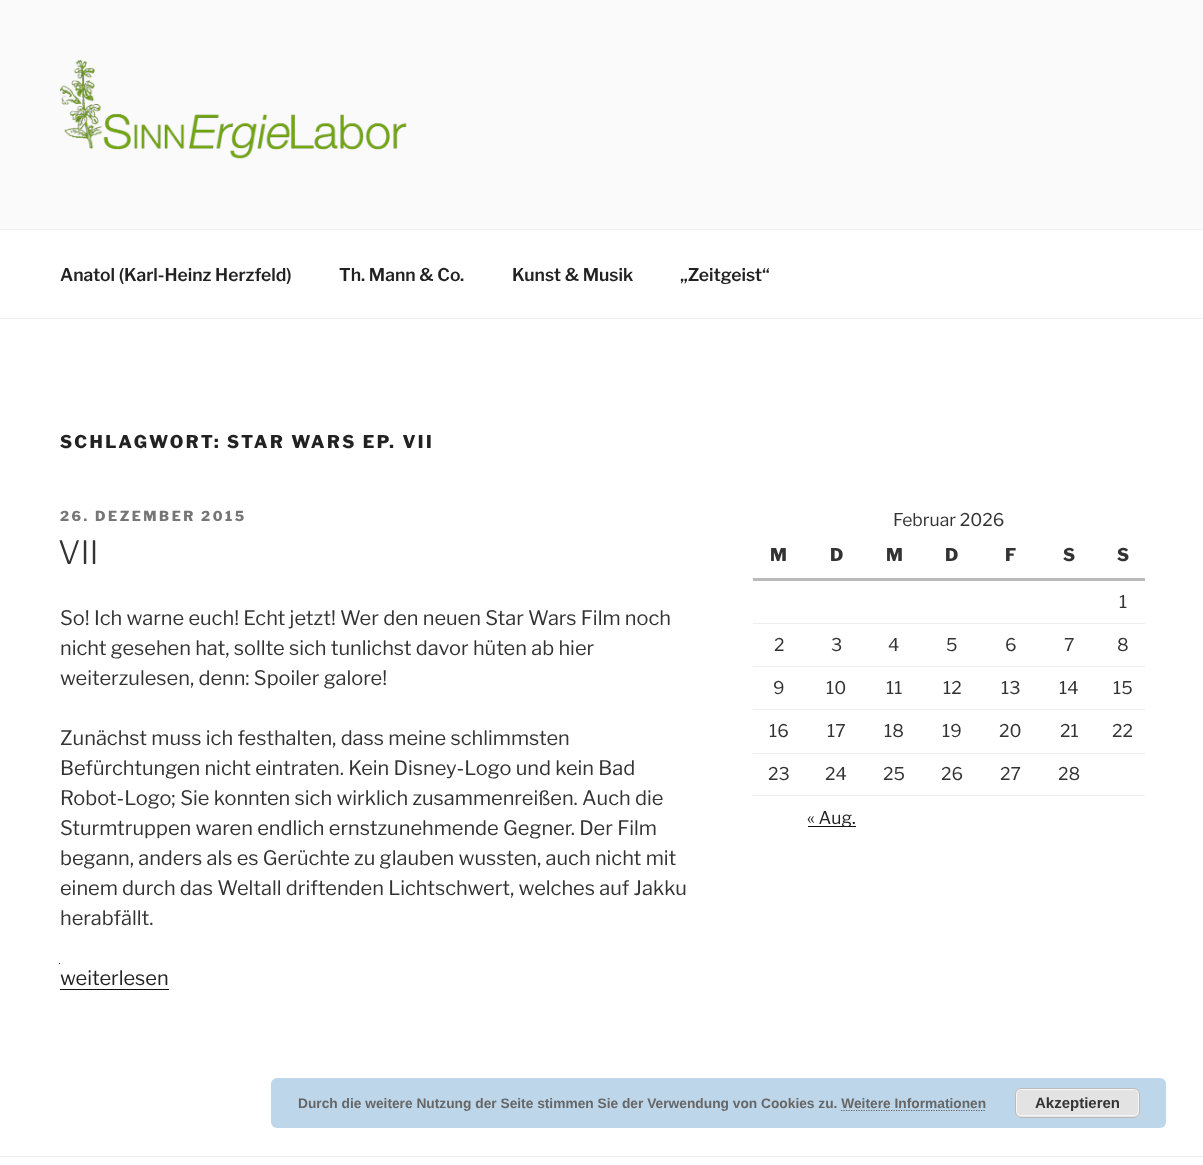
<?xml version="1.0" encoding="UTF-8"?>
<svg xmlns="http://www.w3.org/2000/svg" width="1203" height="1165">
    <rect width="100%" height="100%" fill="#FFFFFF"/>
    <rect x="0" y="0" width="1203" height="229" fill="#FAFAFA"/>
    <image x="60" y="60" width="347" height="99" href="img_01.png"/>
    <rect x="0" y="229" width="1203" height="1" fill="#EEEEEE"/>
    <rect x="0" y="318" width="1203" height="1" fill="#EEEEEE"/>
    <text x="60" y="281" font-family="'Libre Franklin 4'" font-size="17.5" font-weight="100" fill="#222222">Anatol (Karl-Heinz Herzfeld)</text>
    <text x="339" y="281" font-family="'Libre Franklin 4'" font-size="17.5" font-weight="100" fill="#222222">Th. Mann &amp; Co.</text>
    <text x="512" y="281" font-family="'Libre Franklin 4'" font-size="17.5" font-weight="100" fill="#222222">Kunst &amp; Musik</text>
    <text x="680" y="281" font-family="'Libre Franklin 4'" font-size="17.5" font-weight="100" fill="#222222">„Zeitgeist“</text>
    <text x="60" y="448" font-family="Libre Franklin" font-size="17.5" font-weight="100" letter-spacing="2.45" fill="#222222">SCHLAGWORT: STAR WARS EP. VII</text>
    <text x="60" y="521" font-family="Libre Franklin" font-size="13.75" font-weight="100" letter-spacing="2.5" fill="#767676">26. DEZEMBER 2015</text>
    <text x="58" y="564" font-family="'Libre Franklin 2'" font-size="32" font-weight="100" fill="#333333">VII</text>
    <text font-family="'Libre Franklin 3'" font-size="20" font-weight="100" fill="#333333">
        <tspan x="60" y="625">So! Ich warne euch! Echt jetzt! Wer den neuen Star Wars Film noch</tspan>
        <tspan x="60" y="655">nicht gesehen hat, sollte sich tunlichst davor hüten ab hier</tspan>
        <tspan x="60" y="685">weiterzulesen, denn: Spoiler galore!</tspan>
    </text>
    <text font-family="'Libre Franklin 3'" font-size="20" font-weight="100" fill="#333333">
        <tspan x="60" y="745">Zunächst muss ich festhalten, dass meine schlimmsten</tspan>
        <tspan x="60" y="775">Befürchtungen nicht eintraten. Kein Disney-Logo und kein Bad</tspan>
        <tspan x="60" y="805">Robot-Logo; Sie konnten sich wirklich zusammenreißen. Auch die</tspan>
        <tspan x="60" y="835">Sturmtruppen waren endlich ernstzunehmende Gegner. Der Film</tspan>
        <tspan x="60" y="865">begann, anders als es Gerüchte zu glauben wussten, auch nicht mit</tspan>
        <tspan x="60" y="895">einem durch das Weltall driftenden Lichtschwert, welches auf Jakku</tspan>
        <tspan x="60" y="925">herabfällt.</tspan>
    </text>
    <text x="60" y="985" font-family="'Libre Franklin 3'" font-size="20" font-weight="100" fill="#222222">weiterlesen</text>
    <rect x="59" y="963" width="1" height="1" fill="#0F0F0F"/>
    <rect x="60" y="989" width="109" height="1" fill="#0F0F0F"/>
    <text x="893" y="526" font-family="'Libre Franklin 3'" font-size="17.5" font-weight="100" fill="#333333">Februar 2026</text>
    <text x="770" y="561" font-family="Libre Franklin" font-size="17.5" font-weight="100" fill="#333333">M</text>
    <text x="830" y="561" font-family="Libre Franklin" font-size="17.5" font-weight="100" fill="#333333">D</text>
    <text x="886" y="561" font-family="Libre Franklin" font-size="17.5" font-weight="100" fill="#333333">M</text>
    <text x="945" y="561" font-family="Libre Franklin" font-size="17.5" font-weight="100" fill="#333333">D</text>
    <text x="1005" y="561" font-family="Libre Franklin" font-size="17.5" font-weight="100" fill="#333333">F</text>
    <text x="1063" y="561" font-family="Libre Franklin" font-size="17.5" font-weight="100" fill="#333333">S</text>
    <rect x="753" y="578" width="392" height="3" fill="#BBBBBB"/>
    <text x="1117" y="561" font-family="Libre Franklin" font-size="17.5" font-weight="100" fill="#333333">S</text>
    <rect x="753" y="623" width="392" height="1" fill="#EEEEEE"/>
    <text x="1119" y="608" font-family="'Libre Franklin 3'" font-size="17.5" font-weight="100" fill="#333333">1</text>
    <rect x="753" y="666" width="392" height="1" fill="#EEEEEE"/>
    <text x="774" y="651" font-family="'Libre Franklin 3'" font-size="17.5" font-weight="100" fill="#333333">2</text>
    <text x="831" y="651" font-family="'Libre Franklin 3'" font-size="17.5" font-weight="100" fill="#333333">3</text>
    <text x="888" y="651" font-family="'Libre Franklin 3'" font-size="17.5" font-weight="100" fill="#333333">4</text>
    <text x="946" y="651" font-family="'Libre Franklin 3'" font-size="17.5" font-weight="100" fill="#333333">5</text>
    <text x="1005" y="651" font-family="'Libre Franklin 3'" font-size="17.5" font-weight="100" fill="#333333">6</text>
    <text x="1064" y="651" font-family="'Libre Franklin 3'" font-size="17.5" font-weight="100" fill="#333333">7</text>
    <text x="1117" y="651" font-family="'Libre Franklin 3'" font-size="17.5" font-weight="100" fill="#333333">8</text>
    <rect x="753" y="709" width="392" height="1" fill="#EEEEEE"/>
    <text x="773" y="694" font-family="'Libre Franklin 3'" font-size="17.5" font-weight="100" fill="#333333">9</text>
    <text x="826" y="694" font-family="'Libre Franklin 3'" font-size="17.5" font-weight="100" fill="#333333">10</text>
    <text x="886" y="694" font-family="'Libre Franklin 3'" font-size="17.5" font-weight="100" fill="#333333">11</text>
    <text x="943" y="694" font-family="'Libre Franklin 3'" font-size="17.5" font-weight="100" fill="#333333">12</text>
    <text x="1001" y="694" font-family="'Libre Franklin 3'" font-size="17.5" font-weight="100" fill="#333333">13</text>
    <text x="1059" y="694" font-family="'Libre Franklin 3'" font-size="17.5" font-weight="100" fill="#333333">14</text>
    <text x="1113" y="694" font-family="'Libre Franklin 3'" font-size="17.5" font-weight="100" fill="#333333">15</text>
    <rect x="753" y="753" width="392" height="1" fill="#EEEEEE"/>
    <text x="769" y="737" font-family="'Libre Franklin 3'" font-size="17.5" font-weight="100" fill="#333333">16</text>
    <text x="827" y="737" font-family="'Libre Franklin 3'" font-size="17.5" font-weight="100" fill="#333333">17</text>
    <text x="884" y="737" font-family="'Libre Franklin 3'" font-size="17.5" font-weight="100" fill="#333333">18</text>
    <text x="942" y="737" font-family="'Libre Franklin 3'" font-size="17.5" font-weight="100" fill="#333333">19</text>
    <text x="999" y="737" font-family="'Libre Franklin 3'" font-size="17.5" font-weight="100" fill="#333333">20</text>
    <text x="1060" y="737" font-family="'Libre Franklin 3'" font-size="17.5" font-weight="100" fill="#333333">21</text>
    <text x="1112" y="737" font-family="'Libre Franklin 3'" font-size="17.5" font-weight="100" fill="#333333">22</text>
    <rect x="753" y="795" width="392" height="1" fill="#EEEEEE"/>
    <text x="768" y="780" font-family="'Libre Franklin 3'" font-size="17.5" font-weight="100" fill="#333333">23</text>
    <text x="825" y="780" font-family="'Libre Franklin 3'" font-size="17.5" font-weight="100" fill="#333333">24</text>
    <text x="883" y="780" font-family="'Libre Franklin 3'" font-size="17.5" font-weight="100" fill="#333333">25</text>
    <text x="941" y="780" font-family="'Libre Franklin 3'" font-size="17.5" font-weight="100" fill="#333333">26</text>
    <text x="1000" y="780" font-family="'Libre Franklin 3'" font-size="17.5" font-weight="100" fill="#333333">27</text>
    <text x="1058" y="780" font-family="'Libre Franklin 3'" font-size="17.5" font-weight="100" fill="#333333">28</text>
    <rect x="808" y="826" width="48" height="1" fill="#0F0F0F"/>
    <text x="807" y="824" font-family="'Libre Franklin 3'" font-size="17.5" font-weight="100" fill="#222222">« Aug.</text>
    <rect x="0" y="1156" width="1203" height="1" fill="#EEEEEE"/>
    <rect x="271" y="1078" width="895" height="50" rx="6" fill="#BED6E9"/>
    <text x="298" y="1108" font-family="Liberation Sans" font-size="13.75" font-weight="700" fill="#666666">Durch die weitere Nutzung der Seite stimmen Sie der Verwendung von Cookies zu. Weitere Informationen</text>
    <rect x="1015" y="1088" width="125" height="30" rx="6" fill="#E3E3E3"/>
    <rect x="1016.5" y="1089.5" width="122" height="26" rx="4.5" fill="none" stroke="#F6F6F6"/>
    <rect x="1015.5" y="1088.5" width="124" height="29" rx="5.5" fill="none" stroke="#BBBBBB"/>
    <text x="1035" y="1108" font-family="Liberation Sans" font-size="15" font-weight="700" fill="#333333">Akzeptieren</text>
    <path d="M 841 1110.5 H 986" fill="none" stroke="#666666" stroke-width="1.2" stroke-dasharray="1.25 1.25"/>
</svg>
